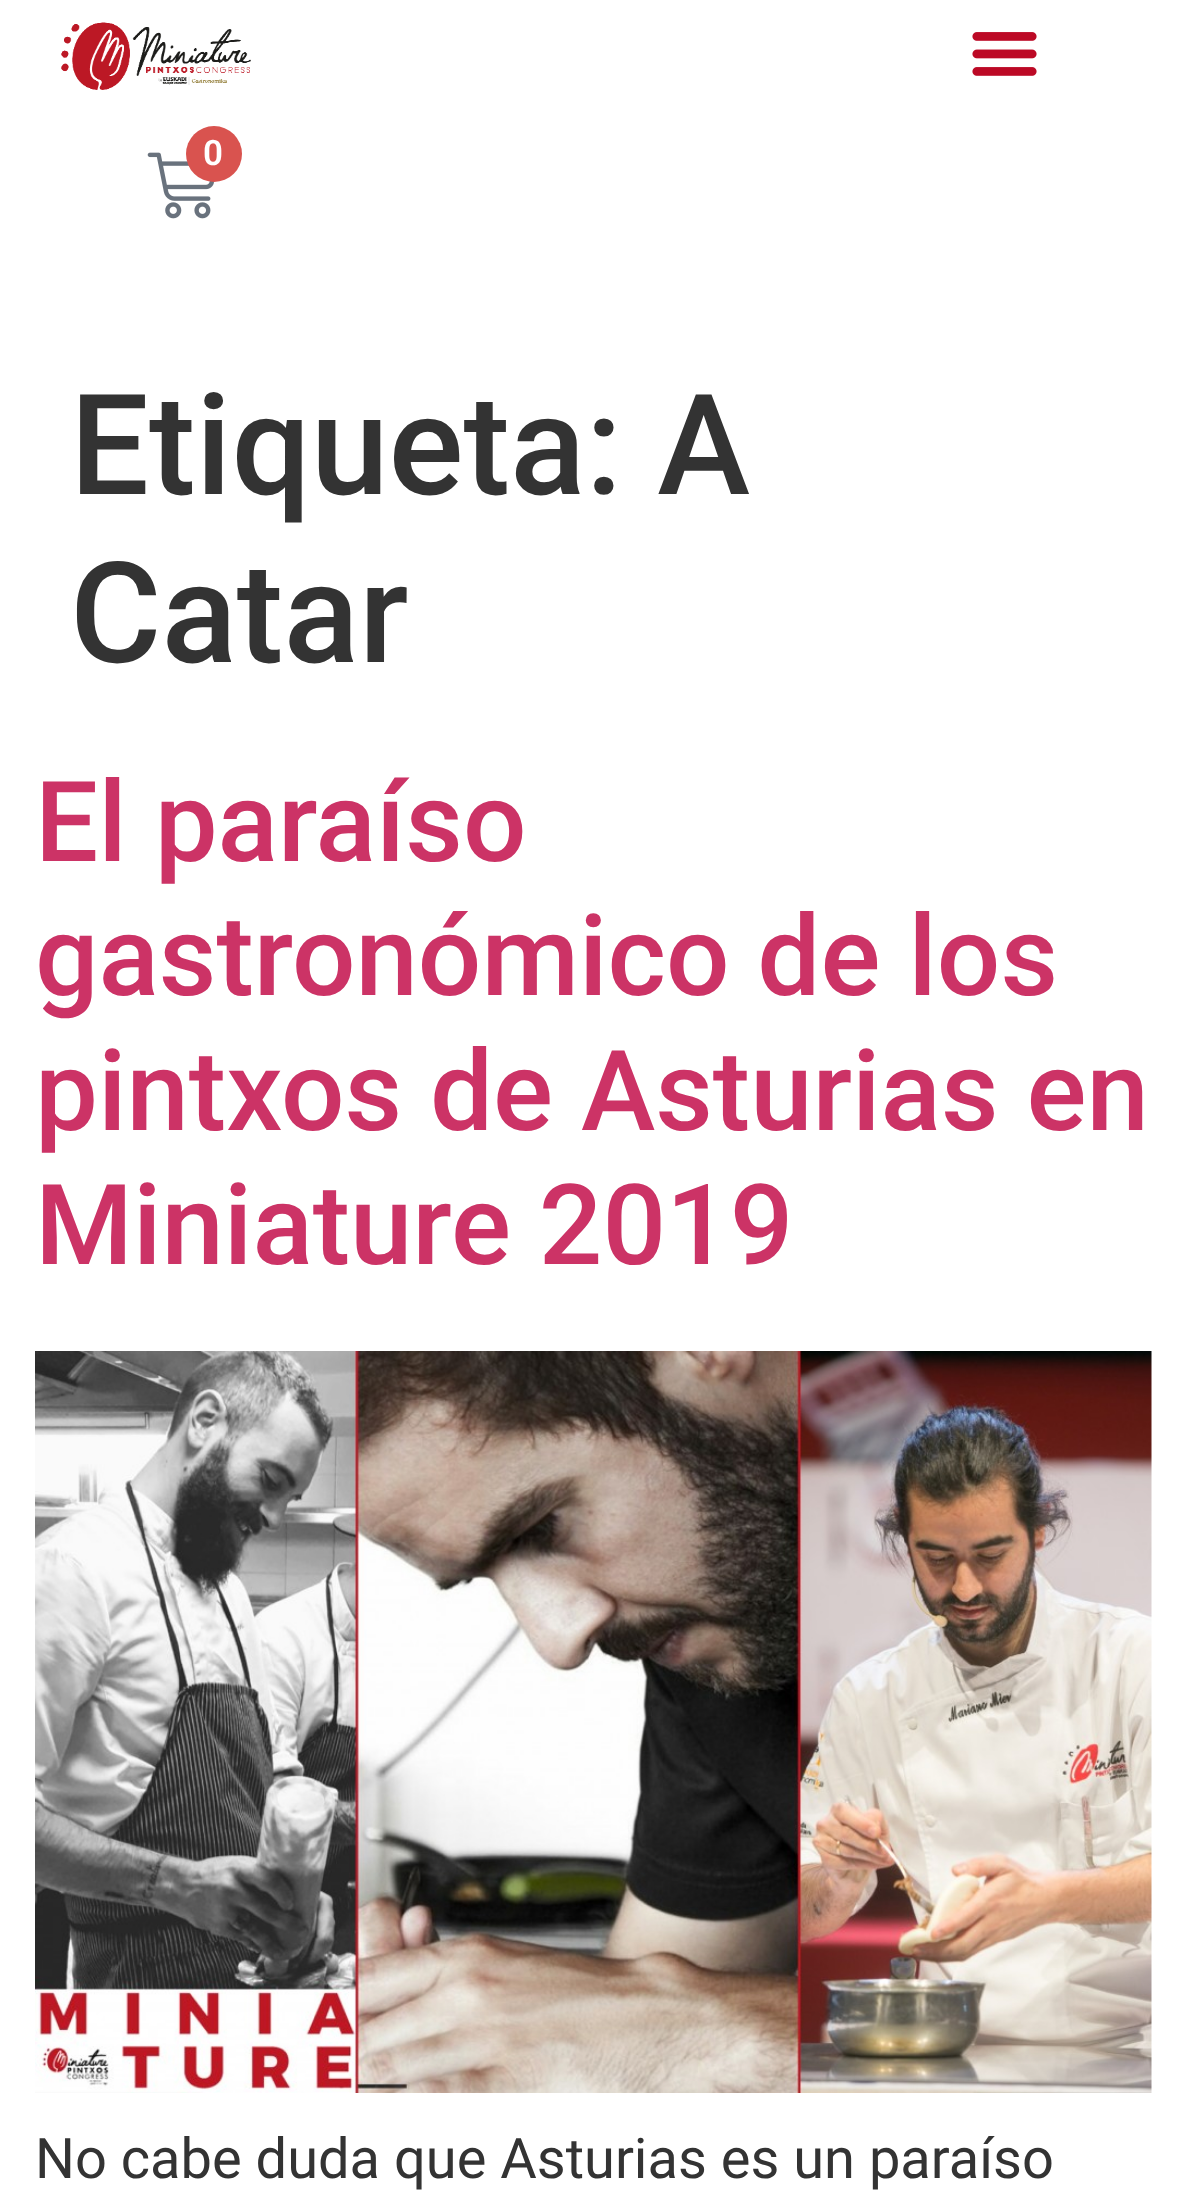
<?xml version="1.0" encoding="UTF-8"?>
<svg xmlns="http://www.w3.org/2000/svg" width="1185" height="2195">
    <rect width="100%" height="100%" fill="#FFFFFF"/>
    <image x="61" y="22" width="190" height="68" href="img_01.png"/>
    <image x="972" y="32" width="65" height="44" href="img_02.png"/>
    <image x="147" y="152" width="68" height="67" href="img_03.png"/>
    <circle cx="214" cy="154" r="28" fill="#D9534F"/>
    <text x="203" y="165" font-family="Roboto" font-size="35" font-weight="600" fill="#FFFFFF">0</text>
    <text font-family="Roboto" font-size="140" font-weight="500" fill="#333333">
        <tspan x="70" y="494">Etiqueta: A</tspan>
        <tspan x="70" y="662">Catar</tspan>
    </text>
    <text font-family="Roboto" font-size="112" font-weight="500" fill="#CC3366">
        <tspan x="35" y="861">El paraíso</tspan>
        <tspan x="35" y="995">gastronómico de los</tspan>
        <tspan x="35" y="1130">pintxos de Asturias en</tspan>
        <tspan x="35" y="1264">Miniature 2019</tspan>
    </text>
    <image x="35" y="1351" width="1117" height="742" href="img_04.png"/>
    <text x="35" y="2178" font-family="Roboto" font-size="56" fill="#333333">No cabe duda que Asturias es un paraíso</text>
</svg>
